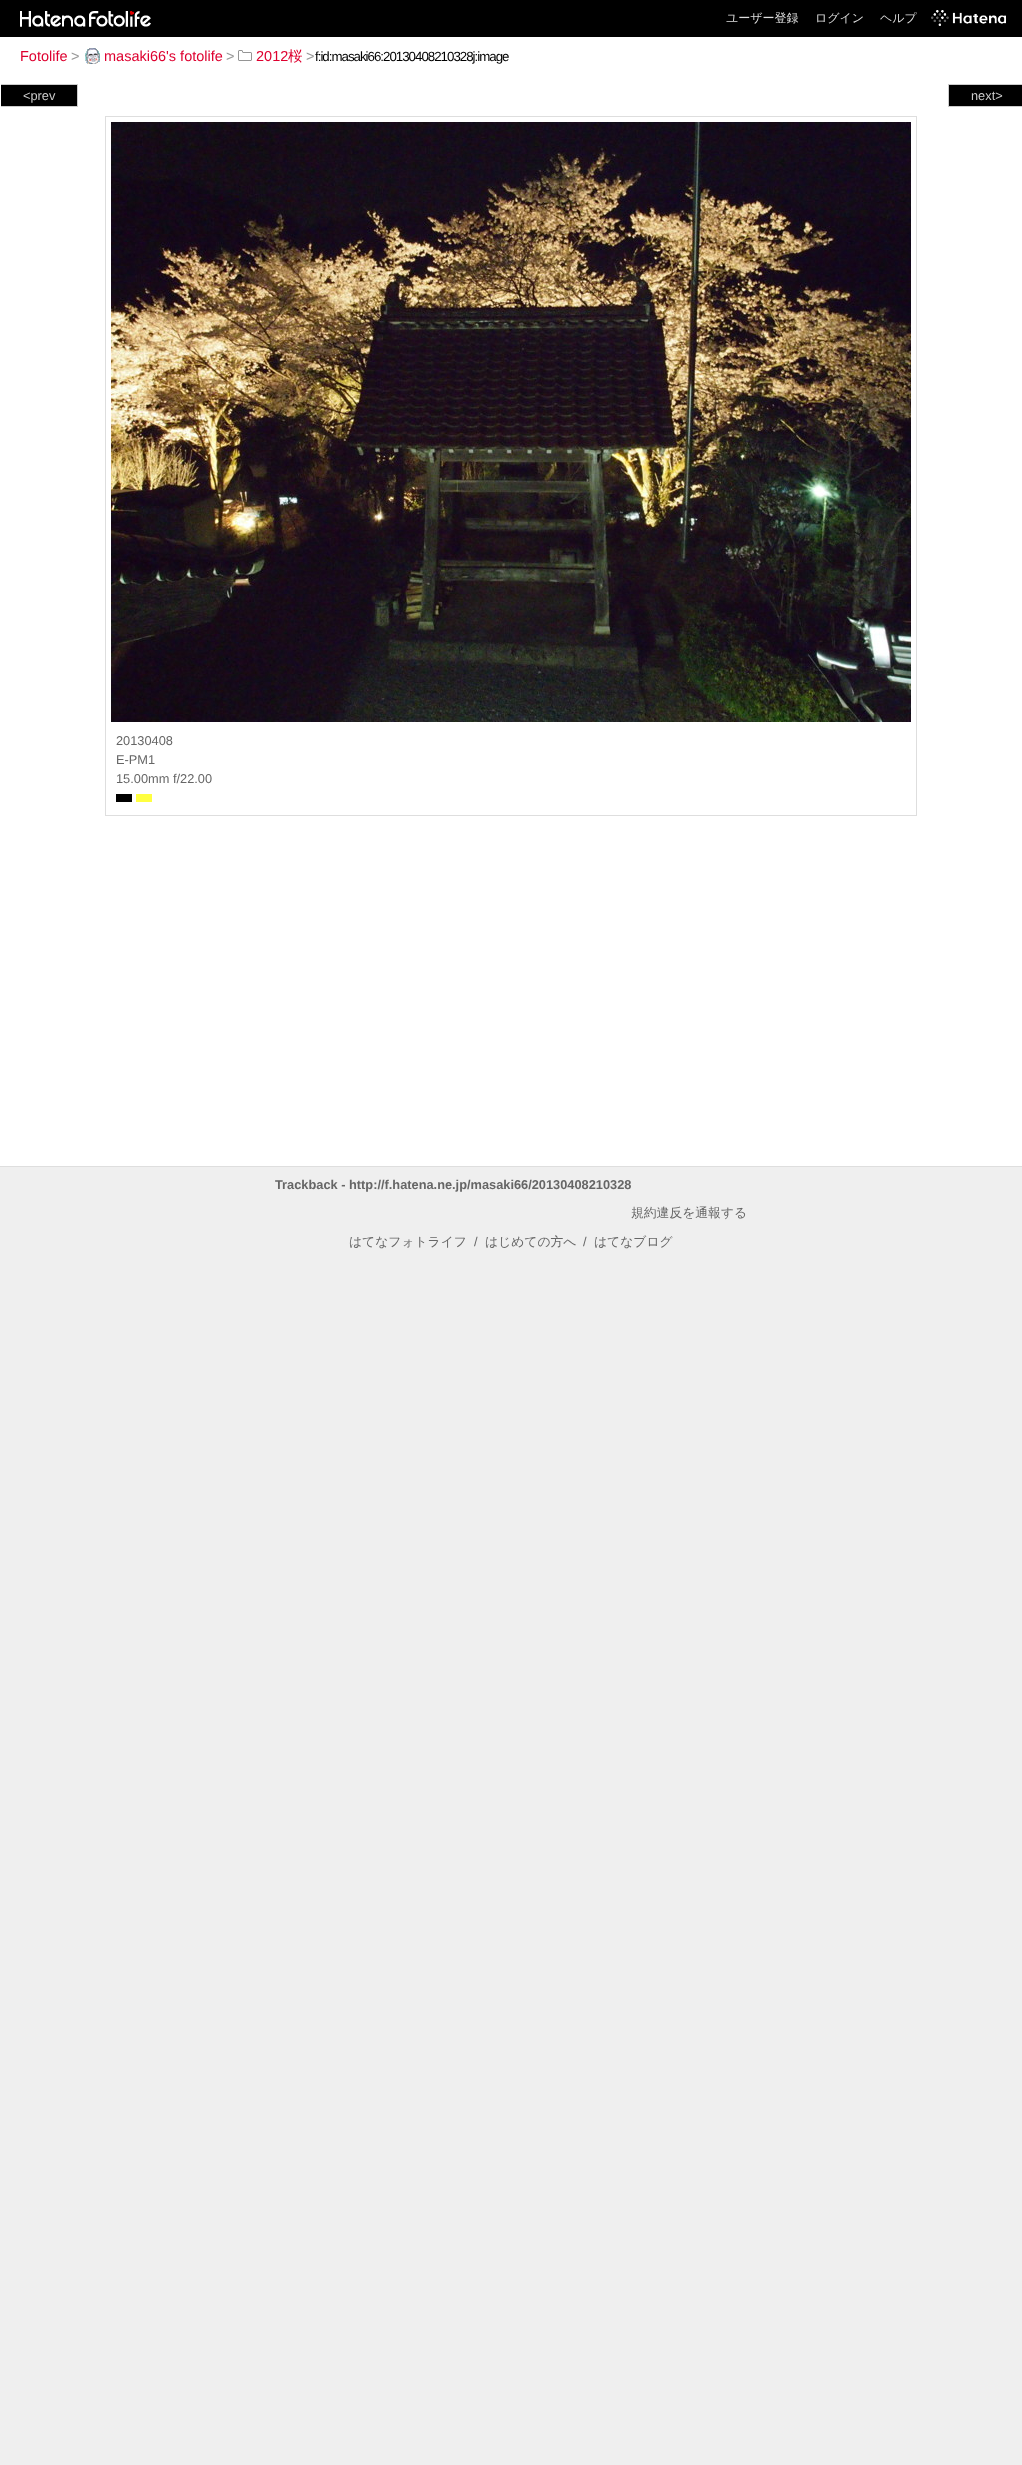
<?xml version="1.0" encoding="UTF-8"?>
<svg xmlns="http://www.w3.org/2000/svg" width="1022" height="2465">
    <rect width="100%" height="100%" fill="#EFEFEF"/>
    <rect x="0" y="0" width="1022" height="37" fill="#000000"/>
    <image x="20" y="11" width="66" height="16" href="img_01.png"/>
    <image x="89" y="11" width="62" height="16" href="img_02.png"/>
    <text x="726" y="22" font-family="WenQuanYi Zen Hei" font-size="12" font-weight="500" fill="#DDDDDD">ユーザー登録</text>
    <text x="815" y="22" font-family="WenQuanYi Zen Hei" font-size="12" font-weight="500" fill="#DDDDDD">ログイン</text>
    <text x="880" y="22" font-family="WenQuanYi Zen Hei" font-size="12" font-weight="500" fill="#DDDDDD">ヘルプ</text>
    <image x="931" y="10" width="75" height="16" href="img_03.png"/>
    <rect x="0" y="37" width="1022" height="1129" fill="#FFFFFF"/>
    <text x="20" y="61" font-family="Liberation Sans" font-size="14.5" fill="#DE002F">Fotolife</text>
    <text x="71" y="61" font-family="Liberation Sans" font-size="14.5" fill="#999999">&gt;</text>
    <image x="85" y="48" width="15" height="16" href="img_04.png"/>
    <text x="104" y="61" font-family="Liberation Sans" font-size="14.5" fill="#DE002F">masaki66's fotolife</text>
    <text x="226" y="61" font-family="Liberation Sans" font-size="14.5" fill="#999999">&gt;</text>
    <image x="238" y="50" width="14" height="11" href="img_05.png"/>
    <text x="256" y="61" font-family="Liberation Sans" font-size="14.5" fill="#DE002F">2012</text>
    <text x="288" y="61" font-family="WenQuanYi Zen Hei" font-size="14.5" font-weight="500" fill="#DE002F">桜</text>
    <text x="306" y="61" font-family="Liberation Sans" font-size="14.5" fill="#999999">&gt;</text>
    <text x="315" y="61" font-family="Liberation Sans" font-size="13.3" letter-spacing="-1" fill="#000000">f:id:masaki66:20130408210328j:image</text>
    <rect x="0" y="1166" width="1022" height="1" fill="#DEDEDE"/>
    <rect x="1" y="85" width="76" height="21" fill="#000000"/>
    <rect x="1" y="84" width="77" height="1" fill="#CCCCCC"/>
    <rect x="77" y="84" width="1" height="23" fill="#CCCCCC"/>
    <rect x="1" y="106" width="77" height="1" fill="#CCCCCC"/>
    <text x="23" y="100" font-family="Liberation Sans" font-size="12.8" fill="#CCCCCC">&lt;prev</text>
    <rect x="949" y="85" width="73" height="21" fill="#000000"/>
    <rect x="948" y="84" width="74" height="1" fill="#CCCCCC"/>
    <rect x="948" y="106" width="74" height="1" fill="#CCCCCC"/>
    <rect x="948" y="84" width="1" height="23" fill="#CCCCCC"/>
    <text x="971" y="100" font-family="Liberation Sans" font-size="12.8" fill="#CCCCCC">next&gt;</text>
    <rect x="105.5" y="116.5" width="811" height="699" fill="none" stroke="#DEDEDE"/>
    <image x="111" y="122" width="800" height="600" href="img_06.png"/>
    <text font-family="Liberation Sans" font-size="12.8" fill="#666666">
        <tspan x="116" y="745">20130408</tspan>
        <tspan x="116" y="764">E-PM1</tspan>
        <tspan x="116" y="783">15.00mm f/22.00</tspan>
    </text>
    <rect x="116" y="794" width="16" height="8" fill="#000000"/>
    <rect x="136" y="794" width="16" height="8" fill="#FFFF40"/>
    <text x="275" y="1189" font-family="Liberation Sans" font-size="12.8" font-weight="700" fill="#666666">Trackback - http://f.hatena.ne.jp/masaki66/20130408210328</text>
    <text x="631" y="1217" font-family="WenQuanYi Zen Hei" font-size="12.8" font-weight="500" fill="#666666">規約違反を通報する</text>
    <text x="349" y="1246" font-family="WenQuanYi Zen Hei" font-size="12.8" font-weight="500" fill="#666666">はてなフォトライフ</text>
    <text x="474" y="1246" font-family="Liberation Sans" font-size="12.8" fill="#666666">/</text>
    <text x="485" y="1246" font-family="WenQuanYi Zen Hei" font-size="12.8" font-weight="500" fill="#666666">はじめての方へ</text>
    <text x="583" y="1246" font-family="Liberation Sans" font-size="12.8" fill="#666666">/</text>
    <text x="594" y="1246" font-family="WenQuanYi Zen Hei" font-size="12.8" font-weight="500" fill="#666666">はてなブログ</text>
</svg>
